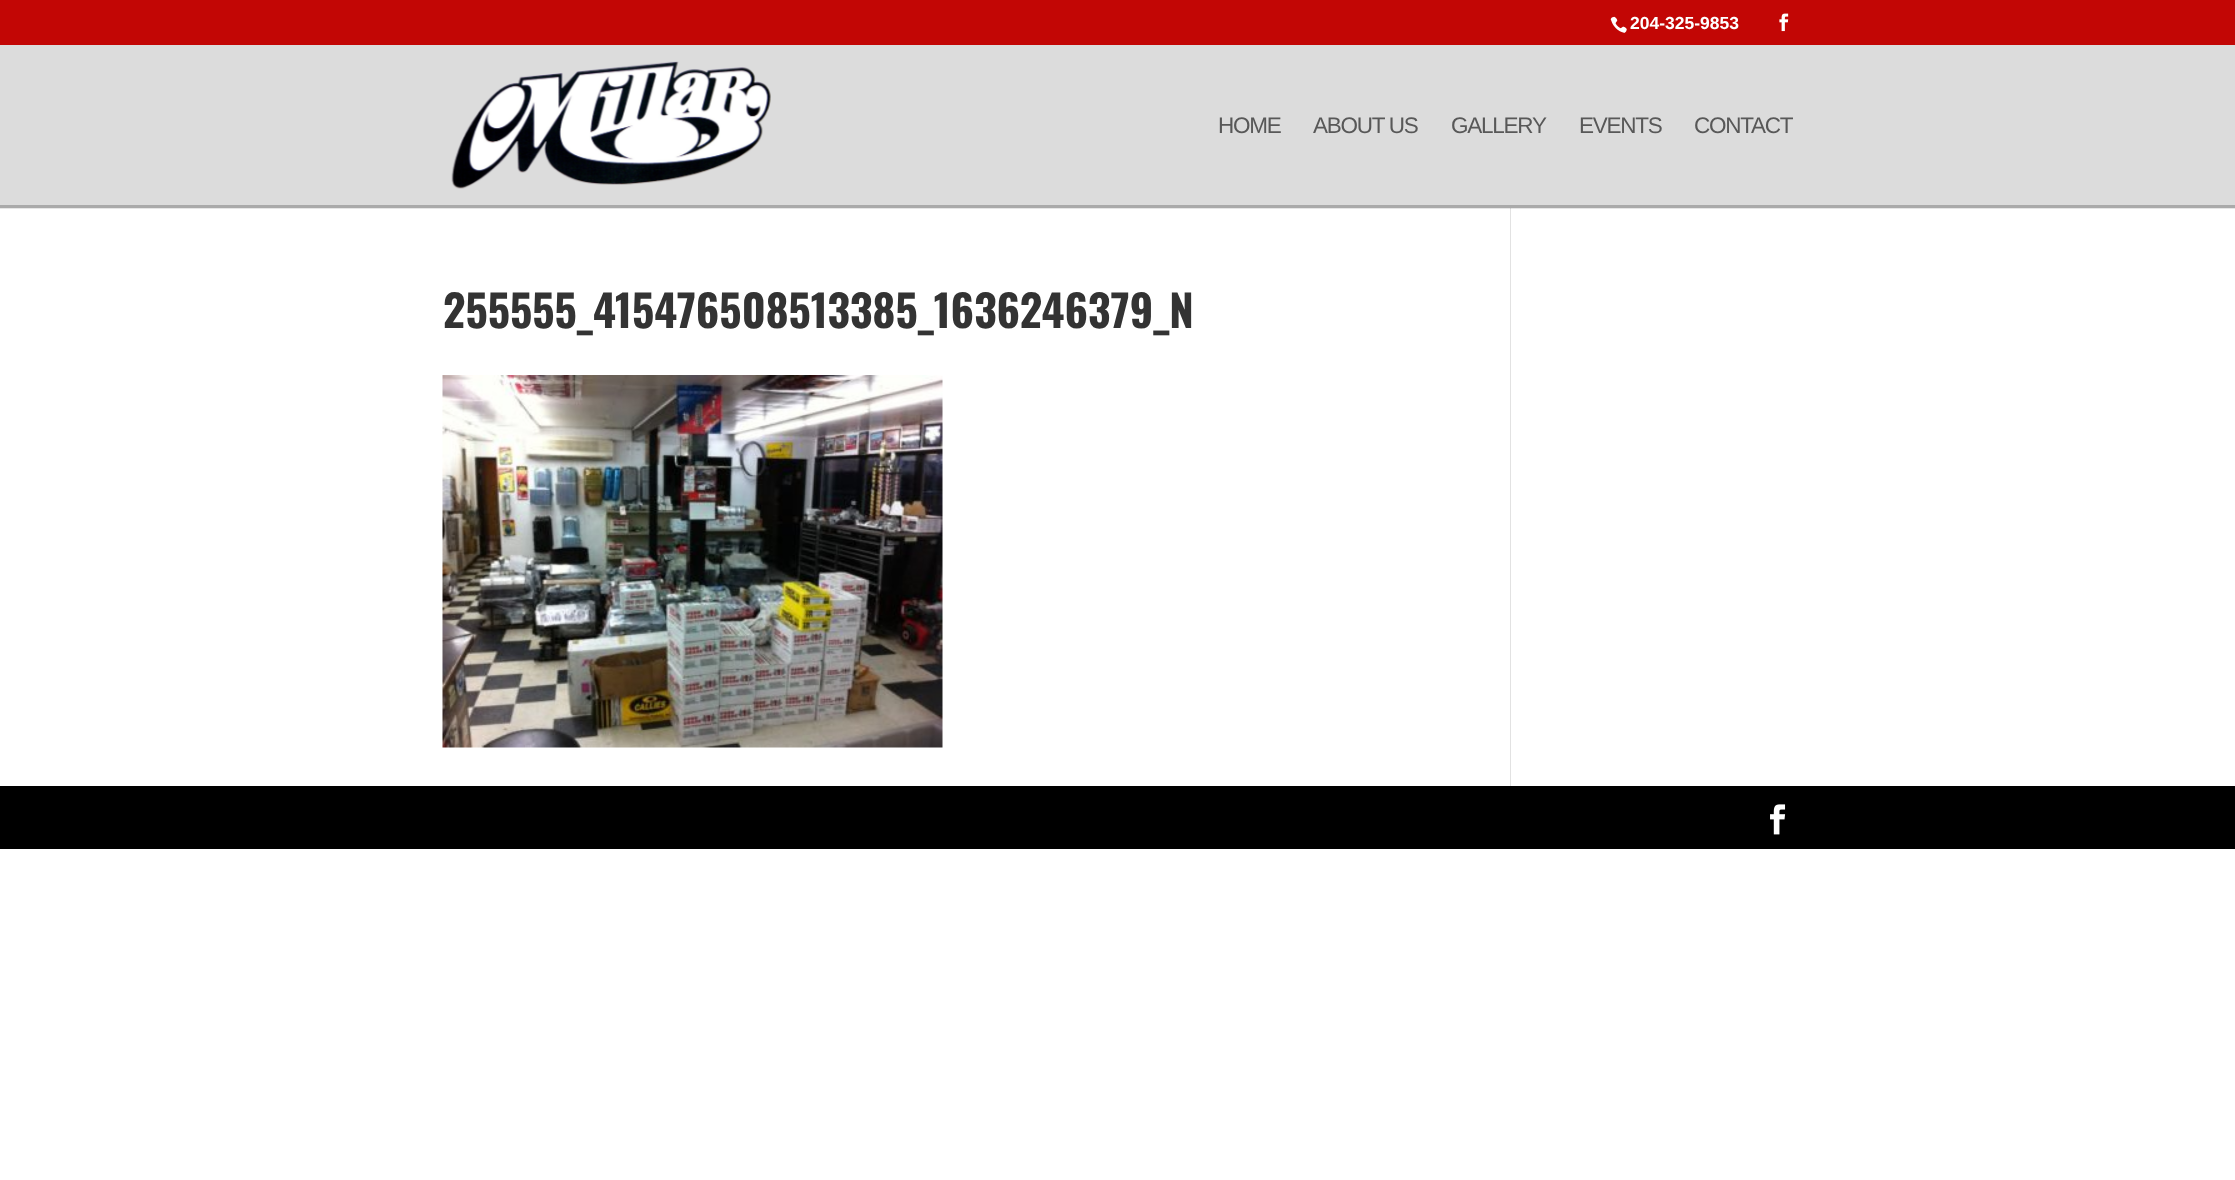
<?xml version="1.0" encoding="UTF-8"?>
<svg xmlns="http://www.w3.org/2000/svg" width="2235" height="1180">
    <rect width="100%" height="100%" fill="#FFFFFF"/>
    <rect x="0" y="208" width="2235" height="1" fill="#E6E6E6"/>
    <rect x="0" y="0" width="2235" height="45" fill="#C20605"/>
    <image x="1610" y="16" width="17" height="17" href="img_01.png"/>
    <text x="1630" y="29" font-family="Liberation Sans" font-size="17.5" font-weight="700" fill="#FFFFFF">204-325-9853</text>
    <image x="1779" y="13" width="10" height="19" href="img_02.png"/>
    <rect x="0" y="45" width="2235" height="160" fill="#DCDCDC"/>
    <rect x="0" y="205" width="2235" height="3" fill="#AAAAAA"/>
    <image x="451" y="61" width="320" height="128" href="img_03.png"/>
    <text x="1218" y="133" font-family="Liberation Sans" font-size="22.5" letter-spacing="-1.25" fill="#585858">HOME</text>
    <text x="1313" y="133" font-family="Liberation Sans" font-size="22.5" letter-spacing="-1.25" fill="#585858">ABOUT US</text>
    <text x="1451" y="133" font-family="Liberation Sans" font-size="22.5" letter-spacing="-1.25" fill="#585858">GALLERY</text>
    <text x="1579" y="133" font-family="Liberation Sans" font-size="22.5" letter-spacing="-1.25" fill="#585858">EVENTS</text>
    <text x="1694" y="133" font-family="Liberation Sans" font-size="22.5" letter-spacing="-1.25" fill="#585858">CONTACT</text>
    <text x="443" y="328" font-family="Oswald" font-size="43.75" font-weight="700" fill="#333333">255555_415476508513385_1636246379_N</text>
    <image x="442" y="375" width="501" height="373" href="img_04.png"/>
    <rect x="1510" y="208" width="1" height="578" fill="#E2E2E2"/>
    <rect x="1510" y="208" width="1" height="1" fill="#CBCBCB"/>
    <rect x="0" y="786" width="2235" height="63" fill="#000000"/>
    <image x="1770" y="804" width="16" height="31" href="img_05.png"/>
</svg>
